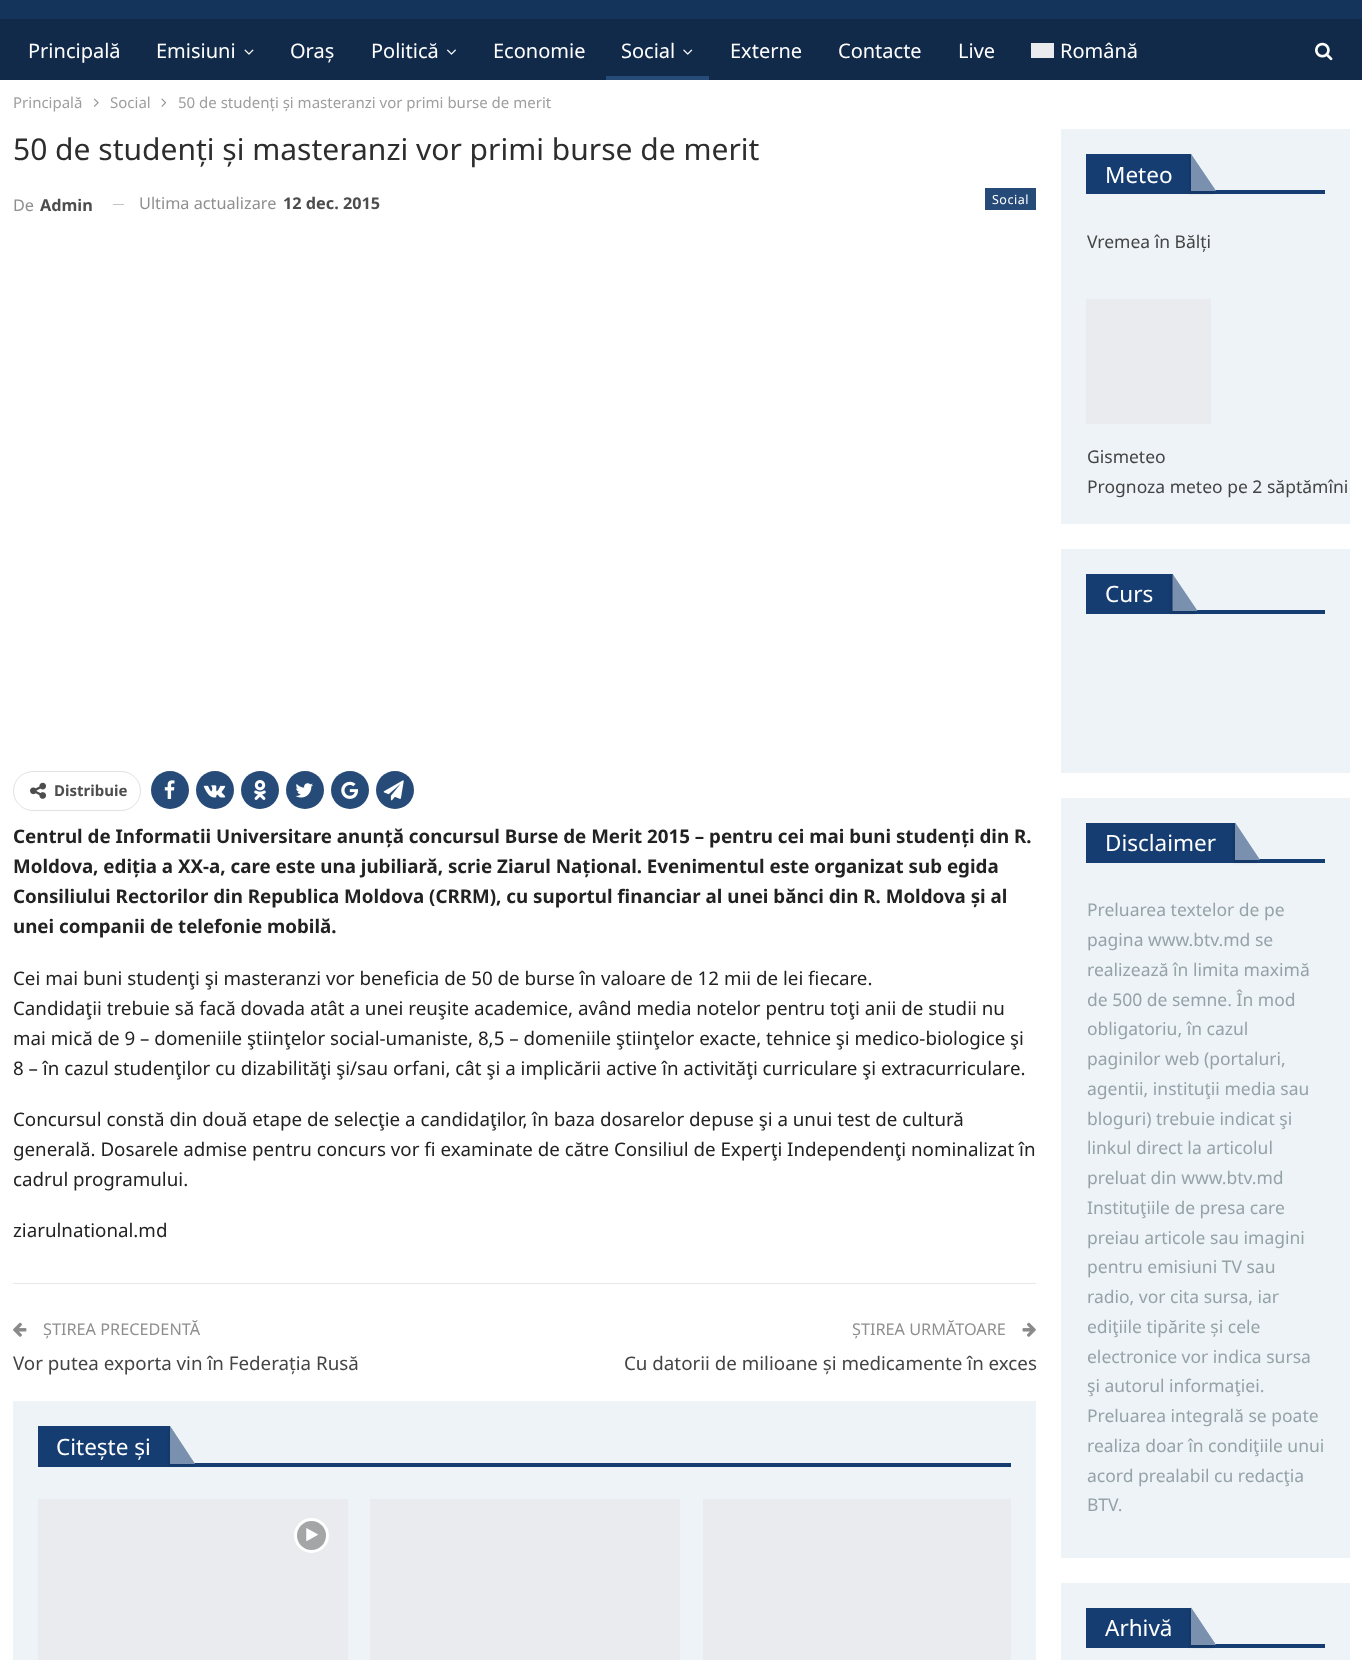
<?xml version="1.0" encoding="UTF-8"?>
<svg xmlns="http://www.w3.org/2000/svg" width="1362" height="1660">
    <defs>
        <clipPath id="clip1"><path d="M 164 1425 H 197 V 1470 H 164 Z M 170 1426 H 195 V 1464 H 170 Z" clip-rule="evenodd"/></clipPath>
        <filter id="blur1" x="-50%" y="-200%" width="200%" height="500%"><feGaussianBlur stdDeviation="1"/></filter>
        <clipPath id="clip2"><path d="M 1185 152 H 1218 V 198 H 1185 Z M 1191 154 H 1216 V 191 H 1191 Z" clip-rule="evenodd"/></clipPath>
        <clipPath id="clip3"><path d="M 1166 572 H 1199 V 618 H 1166 Z M 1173 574 H 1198 V 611 H 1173 Z" clip-rule="evenodd"/></clipPath>
        <clipPath id="clip4"><path d="M 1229 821 H 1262 V 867 H 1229 Z M 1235 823 H 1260 V 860 H 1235 Z" clip-rule="evenodd"/></clipPath>
        <clipPath id="clip5"><path d="M 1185 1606 H 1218 V 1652 H 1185 Z M 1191 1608 H 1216 V 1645 H 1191 Z" clip-rule="evenodd"/></clipPath>
    </defs>
    <rect width="100%" height="100%" fill="#FFFFFF"/>
    <rect x="0" y="0" width="1362" height="19" fill="#15345C"/>
    <rect x="0" y="19" width="1362" height="61" fill="#112A4A"/>
    <text x="28" y="58" font-family="Noto Sans" font-size="20" fill="#FFFFFF">Principală</text>
    <text x="156" y="58" font-family="Noto Sans" font-size="20" fill="#FFFFFF">Emisiuni</text>
    <image x="244" y="49" width="10" height="6" href="img_01.png"/>
    <text x="290" y="58" font-family="Noto Sans" font-size="20" fill="#FFFFFF">Oraș</text>
    <text x="371" y="58" font-family="Noto Sans" font-size="20" fill="#FFFFFF">Politică</text>
    <image x="447" y="49" width="9" height="6" href="img_02.png"/>
    <text x="493" y="58" font-family="Noto Sans" font-size="20" fill="#FFFFFF">Economie</text>
    <text x="621" y="58" font-family="Noto Sans" font-size="20" fill="#FFFFFF">Social</text>
    <image x="683" y="49" width="10" height="6" href="img_03.png"/>
    <rect x="606" y="76" width="103" height="4" fill="#274B79"/>
    <text x="730" y="58" font-family="Noto Sans" font-size="20" fill="#FFFFFF">Externe</text>
    <text x="838" y="58" font-family="Noto Sans" font-size="20" fill="#FFFFFF">Contacte</text>
    <text x="958" y="58" font-family="Noto Sans" font-size="20" fill="#FFFFFF">Live</text>
    <rect x="1031" y="43" width="23" height="15" fill="#E9EBEE"/>
    <text x="1060" y="58" font-family="Noto Sans" font-size="20" fill="#FFFFFF">Română</text>
    <image x="1315" y="42" width="18" height="19" href="img_04.png"/>
    <text x="13" y="108" font-family="Noto Sans" font-size="15" fill="#9E9E9E">Principală</text>
    <image x="93" y="98" width="6" height="9" href="img_05.png"/>
    <text x="110" y="108" font-family="Noto Sans" font-size="15" fill="#9E9E9E">Social</text>
    <image x="161" y="98" width="6" height="9" href="img_06.png"/>
    <text x="178" y="108" font-family="Noto Sans" font-size="15" fill="#9E9E9E">50 de studenți și masteranzi vor primi burse de merit</text>
    <text x="13" y="160" font-family="Noto Sans" font-size="30" fill="#2D2D2D">50 de studenți și masteranzi vor primi burse de merit</text>
    <text x="13" y="211" font-family="Noto Sans" font-size="16.25" fill="#8F8F8F">De</text>
    <text x="40" y="211" font-family="Noto Sans" font-size="16.25" font-weight="700" fill="#4D4D4D">Admin</text>
    <rect x="113" y="204" width="11" height="1" fill="#C4C4C4"/>
    <text x="139" y="209" font-family="Noto Sans" font-size="16.25" fill="#8F8F8F">Ultima actualizare</text>
    <text x="283" y="209" font-family="Noto Sans" font-size="16.25" font-weight="700" fill="#4D4D4D">12 dec. 2015</text>
    <rect x="985" y="188" width="51" height="22" fill="#274B79"/>
    <text x="992" y="204" font-family="Noto Sans" font-size="12.5" letter-spacing="0.5" fill="#FFFFFF">Social</text>
    <rect x="13.5" y="771.5" width="127" height="39" rx="19.5" fill="none" stroke="#E2E2E2"/>
    <image x="30" y="782" width="17" height="17" href="img_07.png"/>
    <text x="54" y="796" font-family="Noto Sans" font-size="15" font-weight="700" fill="#4D4D4D">Distribuie</text>
    <circle cx="170" cy="790" r="19" fill="#274B79"/>
    <image x="164" y="780" width="11" height="19" href="img_08.png"/>
    <circle cx="215" cy="790" r="19" fill="#274B79"/>
    <image x="203" y="785" width="23" height="13" href="img_09.png"/>
    <circle cx="260" cy="790" r="19" fill="#274B79"/>
    <image x="254" y="780" width="12" height="20" href="img_10.png"/>
    <circle cx="305" cy="790" r="19" fill="#274B79"/>
    <image x="295" y="783" width="18" height="15" href="img_11.png"/>
    <circle cx="350" cy="790" r="19" fill="#274B79"/>
    <image x="341" y="781" width="18" height="18" href="img_12.png"/>
    <circle cx="395" cy="790" r="19" fill="#274B79"/>
    <image x="383" y="780" width="21" height="21" href="img_13.png"/>
    <text font-family="Noto Sans" font-size="18.75" font-weight="700" fill="#222222">
        <tspan x="13" y="843">Centrul de Informatii Universitare anunță concursul Burse de Merit 2015 – pentru cei mai buni studenți din R.</tspan>
        <tspan x="13" y="873">Moldova, ediția a XX-a, care este una jubiliară, scrie Ziarul Național. Evenimentul este organizat sub egida</tspan>
        <tspan x="13" y="903">Consiliului Rectorilor din Republica Moldova (CRRM), cu suportul financiar al unei bănci din R. Moldova și al</tspan>
        <tspan x="13" y="933">unei companii de telefonie mobilă.</tspan>
    </text>
    <text font-family="Noto Sans" font-size="18.75" fill="#222222">
        <tspan x="13" y="985">Cei mai buni studenţi şi masteranzi vor beneficia de 50 de burse în valoare de 12 mii de lei fiecare.</tspan>
        <tspan x="13" y="1015">Candidaţii trebuie să facă dovada atât a unei reuşite academice, având media notelor pentru toţi anii de studii nu</tspan>
        <tspan x="13" y="1045">mai mică de 9 – domeniile ştiinţelor social-umaniste, 8,5 – domeniile ştiinţelor exacte, tehnice şi medico-biologice şi</tspan>
        <tspan x="13" y="1075">8 – în cazul studenţilor cu dizabilităţi şi/sau orfani, cât şi a implicării active în activităţi curriculare şi extracurriculare.</tspan>
    </text>
    <text font-family="Noto Sans" font-size="18.75" fill="#222222">
        <tspan x="13" y="1126">Concursul constă din două etape de selecţie a candidaţilor, în baza dosarelor depuse şi a unui test de cultură</tspan>
        <tspan x="13" y="1156">generală. Dosarele admise pentru concurs vor fi examinate de către Consiliul de Experţi Independenţi nominalizat în</tspan>
        <tspan x="13" y="1186">cadrul programului.</tspan>
    </text>
    <text x="13" y="1237" font-family="Noto Sans" font-size="18.75" fill="#222222">ziarulnational.md</text>
    <rect x="13" y="1283" width="1023" height="1" fill="#E8E8E8"/>
    <image x="13" y="1322" width="14" height="15" href="img_14.png"/>
    <text x="43" y="1335" font-family="Noto Sans" font-size="16.25" fill="#8F8F8F">ȘTIREA PRECEDENTĂ</text>
    <text x="13" y="1370" font-family="Noto Sans" font-size="18.75" fill="#444444">Vor putea exporta vin în Federația Rusă</text>
    <text x="852" y="1335" font-family="Noto Sans" font-size="16.25" fill="#8F8F8F">ȘTIREA URMĂTOARE</text>
    <image x="1022" y="1322" width="14" height="15" href="img_15.png"/>
    <text x="624" y="1370" font-family="Noto Sans" font-size="18.75" fill="#444444">Cu datorii de milioane și medicamente în exces</text>
    <rect x="13" y="1401" width="1023" height="259" fill="#EDF3F7"/>
    <rect x="38" y="1426" width="132" height="37" fill="#153D72"/>
    <rect x="38" y="1463" width="973" height="4" fill="#153D72"/>
    <path d="M 195 1464 H 170 V 1426 Z" fill="#153D72"/>
    <g clip-path="url(#clip1)">
        <rect x="168" y="1429" width="25" height="37" fill="#000000" fill-opacity="0.1" filter="url(#blur1)"/>
    </g>
    <path d="M 195 1464 H 170 V 1426 Z" fill="#FFFFFF" fill-opacity="0.43"/>
    <text x="56" y="1455" font-family="Noto Sans" font-size="22.5" fill="#FFFFFF">Citește și</text>
    <rect x="38" y="1499" width="310" height="161" fill="#E9EBEE"/>
    <circle cx="311.5" cy="1535.5" r="16" fill="#A3A5A7" stroke="#FFFFFF" stroke-width="3"/>
    <image x="306" y="1528" width="12" height="13" href="img_16.png"/>
    <rect x="370" y="1499" width="310" height="161" fill="#E9EBEE"/>
    <rect x="703" y="1499" width="308" height="161" fill="#E9EBEE"/>
    <rect x="1061" y="129" width="289" height="395" fill="#EDF3F7"/>
    <rect x="1086" y="154" width="105" height="40" fill="#153D72"/>
    <rect x="1191" y="190" width="134" height="4" fill="#153D72"/>
    <path d="M 1216 191 H 1191 V 154 Z" fill="#153D72"/>
    <g clip-path="url(#clip2)">
        <rect x="1189" y="156" width="25" height="38" fill="#000000" fill-opacity="0.1" filter="url(#blur1)"/>
    </g>
    <path d="M 1216 191 H 1191 V 154 Z" fill="#FFFFFF" fill-opacity="0.43"/>
    <text x="1105" y="183" font-family="Noto Sans" font-size="22.5" fill="#FFFFFF">Meteo</text>
    <text x="1087" y="248" font-family="Noto Sans" font-size="17.5" fill="#444444">Vremea în Bălți</text>
    <text x="1087" y="463" font-family="Noto Sans" font-size="17.5" fill="#444444">Gismeteo</text>
    <rect x="1086" y="299" width="125" height="125" fill="#E9EBEE"/>
    <text x="1087" y="493" font-family="Noto Sans" font-size="17.5" fill="#444444">Prognoza meteo pe 2 săptămîni</text>
    <rect x="1061" y="549" width="289" height="224" fill="#EDF3F7"/>
    <rect x="1086" y="574" width="87" height="40" fill="#153D72"/>
    <rect x="1173" y="610" width="152" height="4" fill="#153D72"/>
    <path d="M 1197.5 611 H 1172.5 V 574 Z" fill="#153D72"/>
    <g clip-path="url(#clip3)">
        <rect x="1170" y="576" width="25" height="38" fill="#000000" fill-opacity="0.1" filter="url(#blur1)"/>
    </g>
    <path d="M 1197.5 611 H 1172.5 V 574 Z" fill="#FFFFFF" fill-opacity="0.43"/>
    <text x="1105" y="602" font-family="Noto Sans" font-size="22.5" fill="#FFFFFF">Curs</text>
    <rect x="1061" y="798" width="289" height="760" fill="#EDF3F7"/>
    <rect x="1086" y="823" width="149" height="40" fill="#153D72"/>
    <rect x="1235" y="859" width="90" height="4" fill="#153D72"/>
    <path d="M 1260 860 H 1235 V 822.5 Z" fill="#153D72"/>
    <g clip-path="url(#clip4)">
        <rect x="1233" y="825" width="25" height="38" fill="#000000" fill-opacity="0.1" filter="url(#blur1)"/>
    </g>
    <path d="M 1260 860 H 1235 V 822.5 Z" fill="#FFFFFF" fill-opacity="0.43"/>
    <text x="1105" y="851" font-family="Noto Sans" font-size="22.5" fill="#FFFFFF">Disclaimer</text>
    <text font-family="Noto Sans" font-size="17.5" fill="#95A3A9">
        <tspan x="1087" y="916">Preluarea textelor de pe</tspan>
        <tspan x="1087" y="946">pagina www.btv.md se</tspan>
        <tspan x="1087" y="976">realizează în limita maximă</tspan>
        <tspan x="1087" y="1006">de 500 de semne. În mod</tspan>
        <tspan x="1087" y="1035">obligatoriu, în cazul</tspan>
        <tspan x="1087" y="1065">paginilor web (portaluri,</tspan>
        <tspan x="1087" y="1095">agentii, instituţii media sau</tspan>
        <tspan x="1087" y="1125">bloguri) trebuie indicat şi</tspan>
        <tspan x="1087" y="1154">linkul direct la articolul</tspan>
        <tspan x="1087" y="1184">preluat din www.btv.md</tspan>
        <tspan x="1087" y="1214">Instituţiile de presa care</tspan>
        <tspan x="1087" y="1244">preiau articole sau imagini</tspan>
        <tspan x="1087" y="1273">pentru emisiuni TV sau</tspan>
        <tspan x="1087" y="1303">radio, vor cita sursa, iar</tspan>
        <tspan x="1087" y="1333">ediţiile tipărite și cele</tspan>
        <tspan x="1087" y="1363">electronice vor indica sursa</tspan>
        <tspan x="1087" y="1392">şi autorul informaţiei.</tspan>
        <tspan x="1087" y="1422">Preluarea integrală se poate</tspan>
        <tspan x="1087" y="1452">realiza doar în condiţiile unui</tspan>
        <tspan x="1087" y="1482">acord prealabil cu redacţia</tspan>
        <tspan x="1087" y="1511">BTV.</tspan>
    </text>
    <rect x="1061" y="1583" width="289" height="77" fill="#EDF3F7"/>
    <rect x="1086" y="1608" width="105" height="40" fill="#153D72"/>
    <rect x="1191" y="1644" width="134" height="4" fill="#153D72"/>
    <path d="M 1216 1645 H 1191 V 1607.5 Z" fill="#153D72"/>
    <g clip-path="url(#clip5)">
        <rect x="1189" y="1610" width="25" height="38" fill="#000000" fill-opacity="0.1" filter="url(#blur1)"/>
    </g>
    <path d="M 1216 1645 H 1191 V 1607.5 Z" fill="#FFFFFF" fill-opacity="0.43"/>
    <text x="1105" y="1636" font-family="Noto Sans" font-size="22.5" fill="#FFFFFF">Arhivă</text>
</svg>
